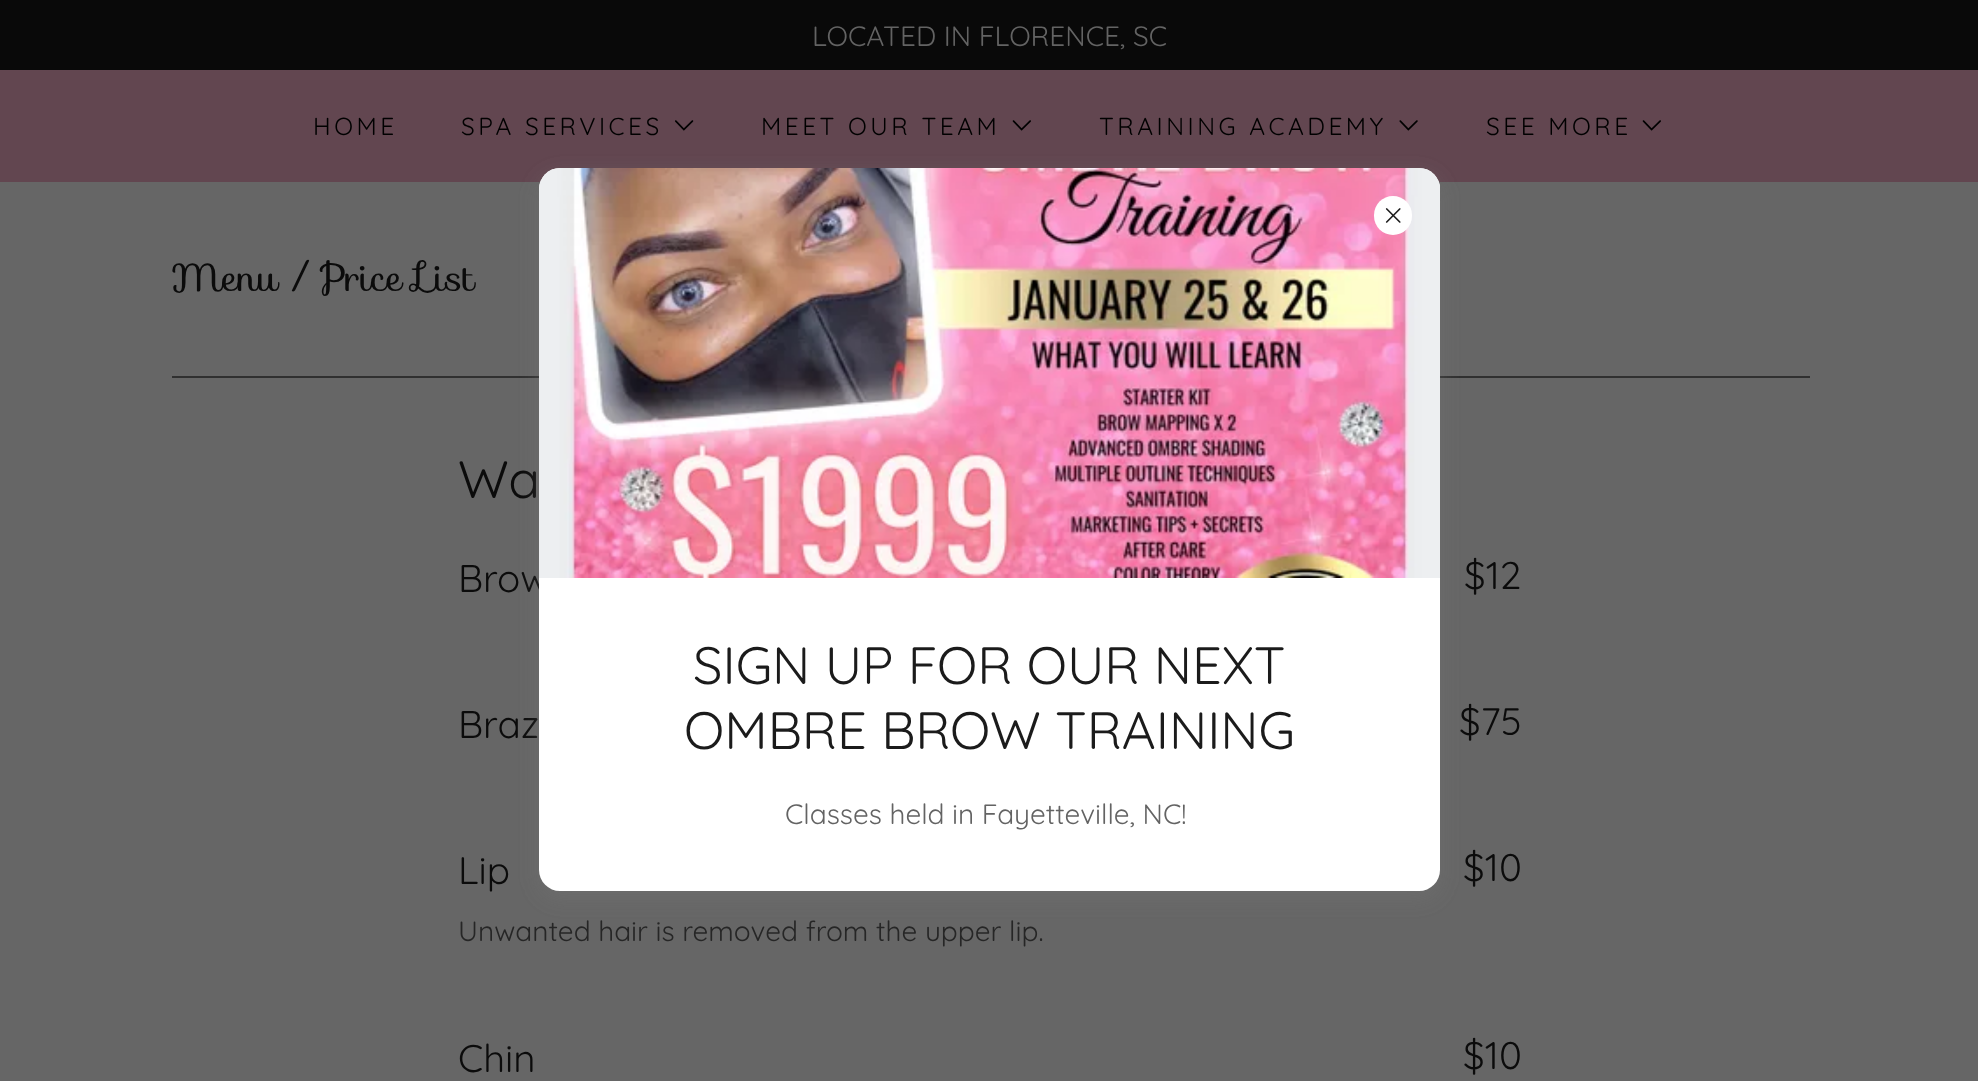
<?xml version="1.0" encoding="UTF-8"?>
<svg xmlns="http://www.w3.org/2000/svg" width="1978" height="1081">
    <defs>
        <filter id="blur1" x="-50%" y="-200%" width="200%" height="500%"><feGaussianBlur stdDeviation="10.5"/></filter>
    </defs>
    <rect width="100%" height="100%" fill="#666666"/>
    <rect x="0" y="0" width="1978" height="70" fill="#090909"/>
    <text x="812" y="46" font-family="Quicksand" font-size="28" font-weight="300" fill="#636363">LOCATED IN FLORENCE, SC</text>
    <rect x="0" y="70" width="1978" height="112" fill="#624650"/>
    <text x="313" y="135" font-family="Quicksand" font-size="24.5" font-weight="300" letter-spacing="3.5" fill="#000000">HOME</text>
    <text x="461" y="135" font-family="Quicksand" font-size="24.5" font-weight="300" letter-spacing="3.5" fill="#000000">SPA SERVICES</text>
    <image x="675" y="120" width="19" height="11" href="img_01.png"/>
    <text x="761" y="135" font-family="Quicksand" font-size="24.5" font-weight="300" letter-spacing="3.5" fill="#000000">MEET OUR TEAM</text>
    <image x="1012" y="120" width="19" height="11" href="img_02.png"/>
    <text x="1099" y="135" font-family="Quicksand" font-size="24.5" font-weight="300" letter-spacing="3.5" fill="#000000">TRAINING ACADEMY</text>
    <image x="1399" y="120" width="19" height="11" href="img_03.png"/>
    <text x="1486" y="135" font-family="Quicksand" font-size="24.5" font-weight="300" letter-spacing="3.5" fill="#000000">SEE MORE</text>
    <image x="1642" y="120" width="19" height="11" href="img_02.png"/>
    <text x="171" y="291" font-family="Sofia" font-size="38.5" fill="#0B0B0B">Menu / Price List</text>
    <rect x="172" y="376" width="1638" height="2" fill="#303030"/>
    <text x="458" y="498" font-family="Quicksand" font-size="52.5" font-weight="300" fill="#0B0B0B">Wa</text>
    <text x="458" y="592" font-family="Quicksand" font-size="38.5" font-weight="300" fill="#0B0B0B">Brow</text>
    <text x="1464" y="589" font-family="Quicksand" font-size="38.5" font-weight="300" fill="#0B0B0B">$12</text>
    <text x="458" y="738" font-family="Quicksand" font-size="38.5" font-weight="300" fill="#0B0B0B">Braz</text>
    <text x="1459" y="735" font-family="Quicksand" font-size="38.5" font-weight="300" fill="#0B0B0B">$75</text>
    <text x="458" y="884" font-family="Quicksand" font-size="38.5" font-weight="300" fill="#0B0B0B">Lip</text>
    <text x="1463" y="881" font-family="Quicksand" font-size="38.5" font-weight="300" fill="#0B0B0B">$10</text>
    <text x="458" y="941" font-family="Quicksand" font-size="28" font-weight="300" fill="#262626">Unwanted hair is removed from the upper lip.</text>
    <text x="458" y="1072" font-family="Quicksand" font-size="38.5" font-weight="300" fill="#0B0B0B">Chin</text>
    <text x="1463" y="1069" font-family="Quicksand" font-size="38.5" font-weight="300" fill="#0B0B0B">$10</text>
    <rect x="539" y="175" width="901" height="723" rx="21" fill="#757575" fill-opacity="0.4" filter="url(#blur1)"/>
    <rect x="539" y="168" width="901" height="723" rx="21" fill="#FFFFFF"/>
    <image x="539" y="168" width="901" height="410" href="img_05.png"/>
    <rect x="1374" y="196" width="38" height="39" rx="19" fill="#FFFFFF"/>
    <image x="1385" y="208" width="16" height="15" href="img_04.png"/>
    <text x="693" y="684" font-family="Quicksand" font-size="52.5" font-weight="300" fill="#1B1B1B">SIGN UP FOR OUR NEXT</text>
    <text x="684" y="749" font-family="Quicksand" font-size="52.5" font-weight="300" fill="#1B1B1B">OMBRE BROW TRAINING</text>
    <text x="785" y="824" font-family="Quicksand" font-size="28" font-weight="300" fill="#636363">Classes held in Fayetteville, NC!</text>
</svg>
